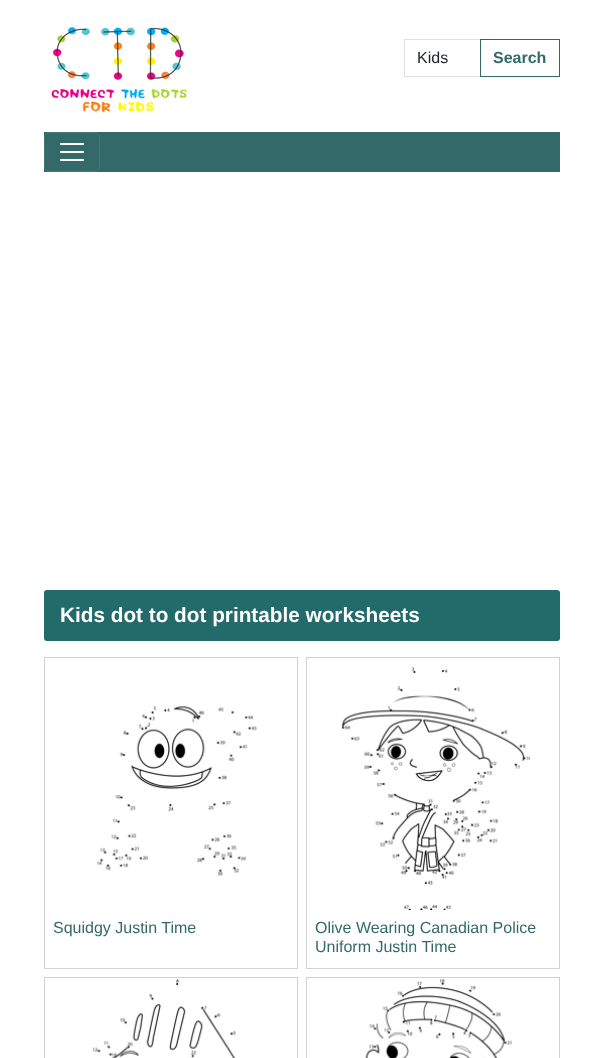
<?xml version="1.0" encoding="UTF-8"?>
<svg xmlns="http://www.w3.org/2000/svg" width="603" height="1058">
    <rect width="100%" height="100%" fill="#FFFFFF"/>
    <image x="51" y="27" width="136" height="86" href="img_01.png"/>
    <rect x="404.5" y="39.5" width="76" height="37" fill="none" stroke="#DEE2E6"/>
    <text x="417" y="63" font-family="Liberation Sans" font-size="16" fill="#212529">Kids</text>
    <rect x="480.5" y="39.5" width="79" height="37" fill="none" stroke="#346969"/>
    <text x="493" y="63" font-family="Liberation Sans" font-size="16" font-weight="700" fill="#346969">Search</text>
    <rect x="44" y="132" width="516" height="40" fill="#346969"/>
    <rect x="44.5" y="132.5" width="55" height="39" rx="5.5" fill="none" stroke="#487878"/>
    <image x="60" y="143" width="24" height="18" href="img_02.png"/>
    <rect x="44" y="590" width="516" height="51" rx="3" fill="#236B6B"/>
    <text x="60" y="622" font-family="Liberation Sans" font-size="20.75" font-weight="700" fill="#FFFFFF">Kids dot to dot printable worksheets</text>
    <rect x="44.5" y="657.5" width="253" height="311" fill="none" stroke="#D2D2D2"/>
    <image x="97" y="706" width="160" height="170" href="img_03.png"/>
    <text x="53" y="933" font-family="Liberation Sans" font-size="16" fill="#346969">Squidgy Justin Time</text>
    <rect x="306.5" y="657.5" width="253" height="311" fill="none" stroke="#D2D2D2"/>
    <image x="341" y="667" width="189" height="243" href="img_04.png"/>
    <text font-family="Liberation Sans" font-size="16" fill="#346969">
        <tspan x="315" y="933">Olive Wearing Canadian Police</tspan>
        <tspan x="315" y="952">Uniform Justin Time</tspan>
    </text>
    <rect x="44.5" y="977.5" width="253" height="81" fill="none" stroke="#D2D2D2"/>
    <image x="92" y="979" width="144" height="79" href="img_05.png"/>
    <rect x="306.5" y="977.5" width="253" height="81" fill="none" stroke="#D2D2D2"/>
    <image x="365" y="979" width="147" height="79" href="img_06.png"/>
</svg>
